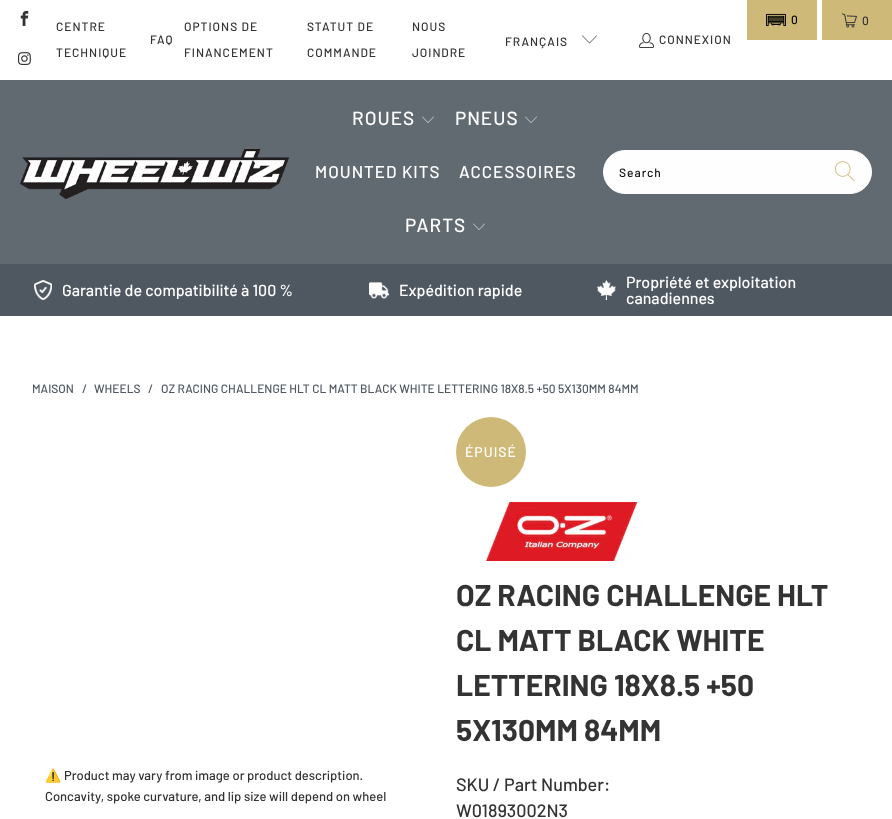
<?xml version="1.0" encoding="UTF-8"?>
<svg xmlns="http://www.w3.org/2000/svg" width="892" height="819">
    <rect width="100%" height="100%" fill="#FFFFFF"/>
    <image x="20" y="10" width="9" height="16" href="img_01.png"/>
    <image x="18" y="52" width="13" height="13" href="img_02.png"/>
    <text x="56" y="31" font-family="Barlow" font-size="12" font-weight="500" letter-spacing="1" fill="#333333">CENTRE</text>
    <text x="56" y="57" font-family="Barlow" font-size="12" font-weight="500" letter-spacing="1" fill="#333333">TECHNIQUE</text>
    <text x="150" y="44" font-family="Barlow" font-size="12" font-weight="500" letter-spacing="1" fill="#333333">FAQ</text>
    <text x="184" y="31" font-family="Barlow" font-size="12" font-weight="500" letter-spacing="1" fill="#333333">OPTIONS DE</text>
    <text x="184" y="57" font-family="Barlow" font-size="12" font-weight="500" letter-spacing="1" fill="#333333">FINANCEMENT</text>
    <text x="307" y="31" font-family="Barlow" font-size="12" font-weight="500" letter-spacing="1" fill="#333333">STATUT DE</text>
    <text x="307" y="57" font-family="Barlow" font-size="12" font-weight="500" letter-spacing="1" fill="#333333">COMMANDE</text>
    <text x="412" y="31" font-family="Barlow" font-size="12" font-weight="500" letter-spacing="1" fill="#333333">NOUS</text>
    <text x="412" y="57" font-family="Barlow" font-size="12" font-weight="500" letter-spacing="1" fill="#333333">JOINDRE</text>
    <rect x="747" y="0" width="70" height="40" fill="#CEB978"/>
    <image x="766" y="13" width="20" height="14" href="img_03.png"/>
    <text x="791" y="24" font-family="Barlow" font-size="12" font-weight="500" letter-spacing="1" fill="#000000">0</text>
    <rect x="822" y="0" width="70" height="40" fill="#CEB978"/>
    <image x="842" y="13" width="15" height="15" href="img_04.png"/>
    <text x="862" y="25" font-family="Barlow" font-size="12" font-weight="500" letter-spacing="1" fill="#333333">0</text>
    <text x="505" y="46" font-family="Barlow" font-size="12" font-weight="500" letter-spacing="1" fill="#333333">FRANÇAIS</text>
    <image x="582" y="35" width="15" height="9" href="img_05.png"/>
    <image x="639" y="32" width="15" height="16" href="img_06.png"/>
    <text x="659" y="44" font-family="Barlow" font-size="12" font-weight="500" letter-spacing="1" fill="#333333">CONNEXION</text>
    <rect x="0" y="80" width="892" height="184" fill="#616971"/>
    <image x="20" y="148" width="269" height="51" href="img_07.png"/>
    <text x="352" y="125" font-family="Barlow" font-size="19" font-weight="500" letter-spacing="1" fill="#FFFFFF">ROUES</text>
    <image x="422" y="116" width="12" height="7" href="img_08.png"/>
    <text x="455" y="125" font-family="Barlow" font-size="19" font-weight="500" letter-spacing="1" fill="#FFFFFF">PNEUS</text>
    <image x="525" y="116" width="12" height="7" href="img_08.png"/>
    <text x="315" y="178" font-family="Barlow" font-size="17" font-weight="500" letter-spacing="1" fill="#FFFFFF">MOUNTED KITS</text>
    <text x="459" y="178" font-family="Barlow" font-size="17" font-weight="500" letter-spacing="1" fill="#FFFFFF">ACCESSOIRES</text>
    <text x="405" y="232" font-family="Barlow" font-size="19" font-weight="500" letter-spacing="1" fill="#FFFFFF">PARTS</text>
    <image x="473" y="223" width="12" height="7" href="img_08.png"/>
    <rect x="603.5" y="150.5" width="268" height="43" rx="21.5" fill="#FEFEFE" stroke="#FEFEFE"/>
    <text x="619" y="177" font-family="Barlow" font-size="12" font-weight="500" letter-spacing="1" fill="#111111">Search</text>
    <image x="835" y="161" width="20" height="21" href="img_09.png"/>
    <rect x="0" y="264" width="892" height="52" fill="#4F5861"/>
    <image x="34" y="280" width="18" height="20" href="img_10.png"/>
    <text x="62" y="296" font-family="Barlow" font-size="16" font-weight="500" fill="#FFFFFF">Garantie de compatibilité à 100 %</text>
    <image x="369" y="282" width="20" height="17" href="img_11.png"/>
    <text x="399" y="296" font-family="Barlow" font-size="16" font-weight="500" fill="#FFFFFF">Expédition rapide</text>
    <image x="597" y="280" width="19" height="20" href="img_12.png"/>
    <text font-family="Barlow" font-size="16" font-weight="500" fill="#FFFFFF">
        <tspan x="626" y="288">Propriété et exploitation</tspan>
        <tspan x="626" y="304">canadiennes</tspan>
    </text>
    <text x="32" y="393" font-family="Barlow" font-size="12" font-weight="500" fill="#4F5861">MAISON</text>
    <text x="82" y="393" font-family="Barlow" font-size="12" font-weight="500" fill="#4F5861">/</text>
    <text x="94" y="393" font-family="Barlow" font-size="12" font-weight="500" fill="#4F5861">WHEELS</text>
    <text x="148" y="393" font-family="Barlow" font-size="12" font-weight="500" fill="#4F5861">/</text>
    <text x="161" y="393" font-family="Barlow" font-size="12" font-weight="500" fill="#4F5861">OZ RACING CHALLENGE HLT CL MATT BLACK WHITE LETTERING 18X8.5 +50 5X130MM 84MM</text>
    <text x="45" y="780" font-family="Noto Color Emoji" font-size="13" fill="#333333">⚠️</text>
    <text x="64" y="780" font-family="Barlow" font-size="13" font-weight="500" fill="#333333">Product may vary from image or product description.</text>
    <text x="45" y="801" font-family="Barlow" font-size="13" font-weight="500" fill="#333333">Concavity, spoke curvature, and lip size will depend on wheel</text>
    <circle cx="491" cy="452" r="35" fill="#CEB978"/>
    <text x="465" y="457" font-family="Barlow" font-size="14" font-weight="500" letter-spacing="1" fill="#FFFFFF">ÉPUISÉ</text>
    <image x="484" y="502" width="155" height="59" href="img_13.png"/>
    <text font-family="Barlow" font-size="30" font-weight="700" fill="#333333">
        <tspan x="456" y="606">OZ RACING CHALLENGE HLT</tspan>
        <tspan x="456" y="651">CL MATT BLACK WHITE</tspan>
        <tspan x="456" y="696">LETTERING 18X8.5 +50</tspan>
        <tspan x="456" y="741">5X130MM 84MM</tspan>
    </text>
    <text font-family="Barlow" font-size="18" font-weight="500" fill="#333333">
        <tspan x="456" y="791">SKU / Part Number:</tspan>
        <tspan x="456" y="817">W01893002N3</tspan>
    </text>
</svg>
